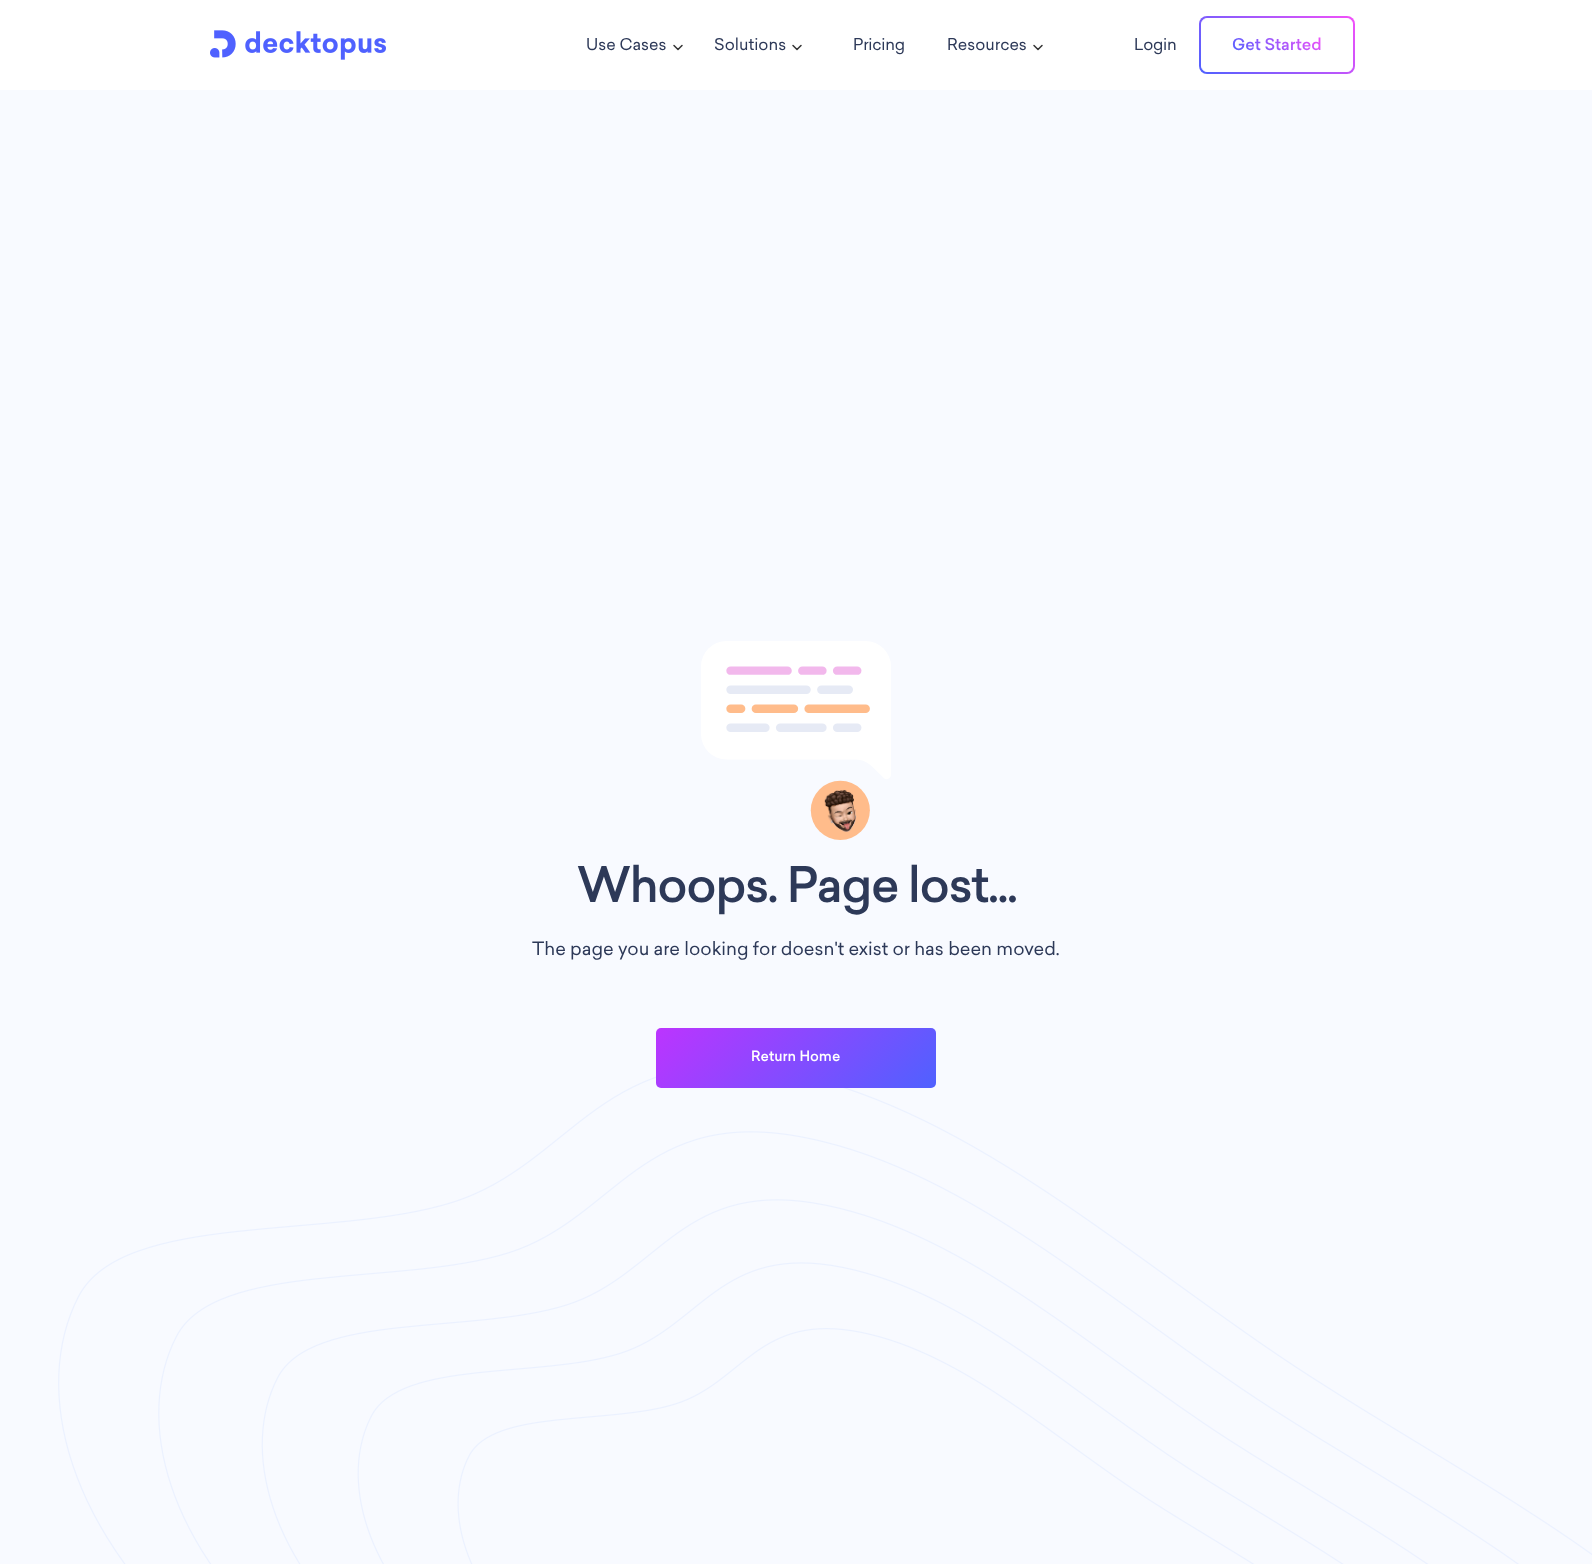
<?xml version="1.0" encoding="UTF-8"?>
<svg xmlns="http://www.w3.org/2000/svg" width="1592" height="1564">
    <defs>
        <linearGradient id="g1" gradientUnits="userSpaceOnUse" x1="1249" y1="73" x2="1305" y2="17"><stop offset="0" stop-color="#4F61FF"/><stop offset="1" stop-color="#F450F9"/></linearGradient>
        <linearGradient id="g2" gradientUnits="userSpaceOnUse" x1="1224" y1="99" x2="1331" y2="-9"><stop offset="0" stop-color="#4F61FF"/><stop offset="1" stop-color="#F450F9"/></linearGradient>
        <linearGradient id="g3" gradientUnits="userSpaceOnUse" x1="711" y1="973" x2="881" y2="1143"><stop offset="0" stop-color="#BC34FF"/><stop offset="1" stop-color="#4F61FF"/></linearGradient>
    </defs>
    <rect width="100%" height="100%" fill="#FFFFFF"/>
    <image x="210" y="30" width="176" height="30" href="img_01.png"/>
    <text x="586" y="50" font-family="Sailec" font-size="16" fill="#2D3958">Use Cases</text>
    <path d="M 674 45.5 L 678 49.5 L 682 45.5" fill="none" stroke="#333333" stroke-width="1.5" stroke-linecap="round" stroke-linejoin="round"/>
    <text x="714" y="50" font-family="Sailec" font-size="16" fill="#2D3958">Solutions</text>
    <path d="M 793 45.5 L 797 49.5 L 801 45.5" fill="none" stroke="#333333" stroke-width="1.5" stroke-linecap="round" stroke-linejoin="round"/>
    <text x="853" y="50" font-family="Sailec" font-size="16" letter-spacing="-0.25" fill="#2D3958">Pricing</text>
    <text x="947" y="50" font-family="Sailec" font-size="16" fill="#2D3958">Resources</text>
    <path d="M 1034 45.5 L 1038 49.5 L 1042 45.5" fill="none" stroke="#333333" stroke-width="1.5" stroke-linecap="round" stroke-linejoin="round"/>
    <text x="1134" y="50" font-family="Sailec" font-size="16" letter-spacing="-0.25" fill="#2D3958">Login</text>
    <rect x="1199" y="16" width="156" height="58" rx="8" fill="url(#g2)"/>
    <rect x="1201.5" y="18.5" width="151" height="53" rx="5.5" fill="#FFFFFF" stroke="#FFFFFF"/>
    <text x="1232" y="50" font-family="Sailec" font-size="16" font-weight="500" fill="url(#g1)">Get Started</text>
    <rect x="0" y="90" width="1592" height="1474" fill="#F8FAFF"/>
    <image x="58" y="1076" width="1534" height="488" href="img_02.png"/>
    <image x="701" y="641" width="190" height="199" href="img_03.png"/>
    <text x="577" y="902" font-family="Sailec" font-size="48" font-weight="500" letter-spacing="-1.4" fill="#2D3958">Whoops. Page lost...</text>
    <text x="532" y="955" font-family="Sailec" font-size="18" fill="#2D3958">The page you are looking for doesn't exist or has been moved.</text>
    <rect x="656" y="1028" width="280" height="60" rx="5" fill="url(#g3)"/>
    <text x="751" y="1061" font-family="Sailec" font-size="14" font-weight="500" fill="#FFFFFF">Return Home</text>
</svg>
